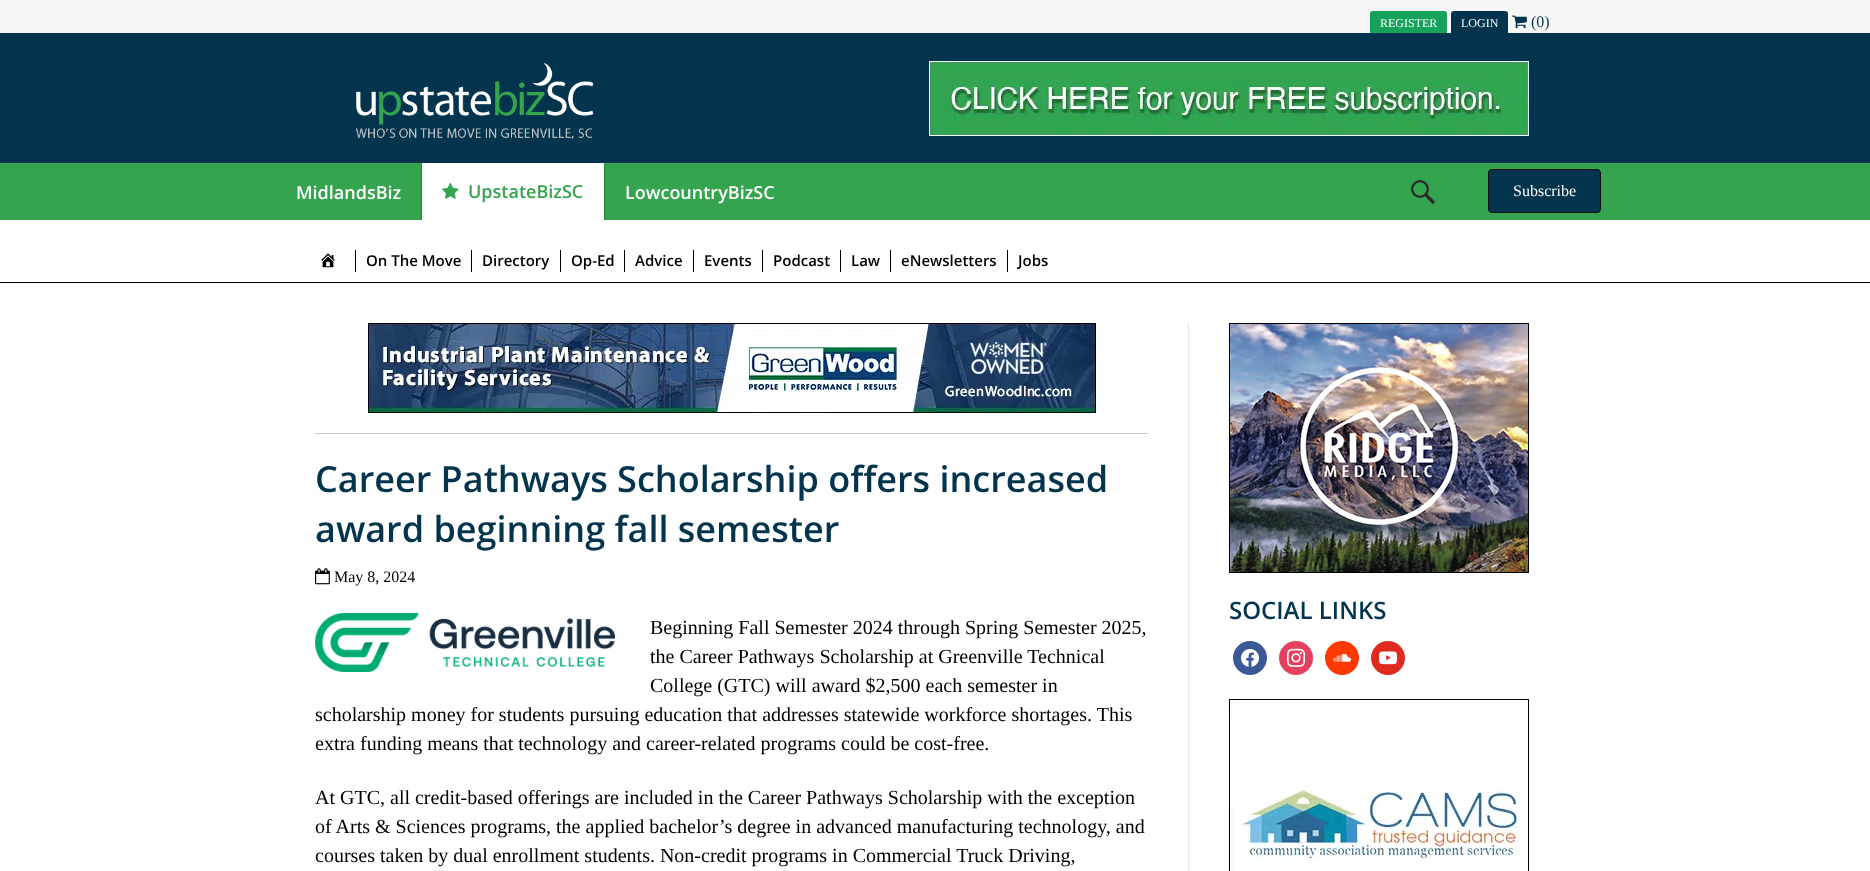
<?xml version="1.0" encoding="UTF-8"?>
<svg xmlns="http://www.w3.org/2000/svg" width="1870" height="871">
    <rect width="100%" height="100%" fill="#FFFFFF"/>
    <rect x="0" y="0" width="1870" height="33" fill="#F7F7F7"/>
    <rect x="1370" y="11" width="77" height="24" rx="3" fill="#16A25B"/>
    <text x="1380" y="27" font-family="Liberation Serif" font-size="12" fill="#FFFFFF">REGISTER</text>
    <rect x="1451" y="11" width="57" height="24" rx="3" fill="#02344D"/>
    <text x="1461" y="27" font-family="Liberation Serif" font-size="12" fill="#FFFFFF">LOGIN</text>
    <image x="1512" y="15" width="15" height="14" href="img_01.png"/>
    <text x="1531" y="27" font-family="Liberation Serif" font-size="16" fill="#02344D">(0)</text>
    <rect x="0" y="33" width="1870" height="130" fill="#02344D"/>
    <image x="355" y="63" width="239" height="76" href="img_02.png"/>
    <image x="929" y="61" width="600" height="75" href="img_03.png"/>
    <rect x="0" y="163" width="1870" height="57" fill="#34A44E"/>
    <text x="296" y="199" font-family="Open Sans" font-size="18" font-weight="600" fill="#FFFFFF">MidlandsBiz</text>
    <rect x="421" y="163" width="1" height="57" fill="#1A8C34"/>
    <rect x="422" y="163" width="182" height="57" fill="#FFFFFF"/>
    <image x="442" y="182" width="17" height="17" href="img_04.png"/>
    <text x="468" y="198" font-family="Open Sans" font-size="18" font-weight="600" fill="#34A44E">UpstateBizSC</text>
    <rect x="604" y="164" width="1" height="56" fill="#1A8C34"/>
    <text x="625" y="199" font-family="Open Sans" font-size="18" font-weight="600" fill="#FFFFFF">LowcountryBizSC</text>
    <image x="1411" y="180" width="24" height="24" href="img_05.png"/>
    <rect x="1488.5" y="169.5" width="112" height="43" rx="3.5" fill="#02344D" stroke="#000C11"/>
    <text x="1513" y="196" font-family="Liberation Serif" font-size="16" fill="#FFFFFF">Subscribe</text>
    <rect x="0" y="282" width="1870" height="1" fill="#000000"/>
    <image x="321" y="253" width="14" height="15" href="img_06.png"/>
    <rect x="355" y="250" width="1" height="22" fill="#000000"/>
    <text x="366" y="266" font-family="Open Sans" font-size="15" font-weight="600" fill="#000000">On The Move</text>
    <rect x="471" y="250" width="1" height="22" fill="#000000"/>
    <text x="482" y="266" font-family="Open Sans" font-size="15" font-weight="600" fill="#000000">Directory</text>
    <rect x="560" y="250" width="1" height="22" fill="#000000"/>
    <text x="571" y="266" font-family="Open Sans" font-size="15" font-weight="600" fill="#000000">Op-Ed</text>
    <rect x="624" y="250" width="1" height="22" fill="#000000"/>
    <text x="635" y="266" font-family="Open Sans" font-size="15" font-weight="600" fill="#000000">Advice</text>
    <rect x="693" y="250" width="1" height="22" fill="#000000"/>
    <text x="704" y="266" font-family="Open Sans" font-size="15" font-weight="600" fill="#000000">Events</text>
    <rect x="762" y="250" width="1" height="22" fill="#000000"/>
    <text x="773" y="266" font-family="Open Sans" font-size="15" font-weight="600" fill="#000000">Podcast</text>
    <rect x="840" y="250" width="1" height="22" fill="#000000"/>
    <text x="851" y="266" font-family="Open Sans" font-size="15" font-weight="600" fill="#000000">Law</text>
    <rect x="890" y="250" width="1" height="22" fill="#000000"/>
    <text x="901" y="266" font-family="Open Sans" font-size="15" font-weight="600" fill="#000000">eNewsletters</text>
    <rect x="1007" y="250" width="1" height="22" fill="#000000"/>
    <text x="1018" y="266" font-family="Open Sans" font-size="15" font-weight="600" fill="#000000">Jobs</text>
    <rect x="1188" y="323" width="1" height="548" fill="#E6E6E6"/>
    <rect x="315" y="433" width="833" height="1" fill="#CCCCCC"/>
    <image x="368" y="323" width="728" height="90" href="img_07.png"/>
    <text font-family="Open Sans" font-size="36" font-weight="600" fill="#02344D">
        <tspan x="315" y="492">Career Pathways Scholarship offers increased</tspan>
        <tspan x="315" y="542">award beginning fall semester</tspan>
    </text>
    <image x="315" y="568" width="15" height="17" href="img_08.png"/>
    <text x="334" y="582" font-family="Liberation Serif" font-size="16" fill="#000000">May 8, 2024</text>
    <image x="315" y="613" width="300" height="59" href="img_09.png"/>
    <text font-family="Liberation Serif" font-size="20" fill="#000000">
        <tspan x="650" y="634">Beginning Fall Semester 2024 through Spring Semester 2025,</tspan>
        <tspan x="650" y="663">the Career Pathways Scholarship at Greenville Technical</tspan>
        <tspan x="650" y="692">College (GTC) will award $2,500 each semester in</tspan>
    </text>
    <text font-family="Liberation Serif" font-size="20" fill="#000000">
        <tspan x="315" y="721">scholarship money for students pursuing education that addresses statewide workforce shortages. This</tspan>
        <tspan x="315" y="750">extra funding means that technology and career-related programs could be cost-free.</tspan>
    </text>
    <text font-family="Liberation Serif" font-size="20" fill="#000000">
        <tspan x="315" y="804">At GTC, all credit-based offerings are included in the Career Pathways Scholarship with the exception</tspan>
        <tspan x="315" y="833">of Arts &amp; Sciences programs, the applied bachelor’s degree in advanced manufacturing technology, and</tspan>
        <tspan x="315" y="862">courses taken by dual enrollment students. Non-credit programs in Commercial Truck Driving,</tspan>
    </text>
    <image x="1229" y="323" width="300" height="250" href="img_10.png"/>
    <text x="1229" y="619" font-family="Open Sans" font-size="24" font-weight="600" fill="#02344D">SOCIAL LINKS</text>
    <circle cx="1250" cy="658" r="17" fill="#3B5998"/>
    <image x="1241" y="649" width="18" height="18" href="img_11.png"/>
    <circle cx="1296" cy="658" r="17" fill="#E4405F"/>
    <image x="1287" y="648" width="18" height="19" href="img_12.png"/>
    <circle cx="1342" cy="658" r="17" fill="#FE3801"/>
    <image x="1333" y="653" width="18" height="9" href="img_13.png"/>
    <circle cx="1388" cy="658" r="17" fill="#E02A20"/>
    <image x="1379" y="651" width="19" height="14" href="img_14.png"/>
    <image x="1229" y="699" width="300" height="172" href="img_15.png"/>
</svg>
